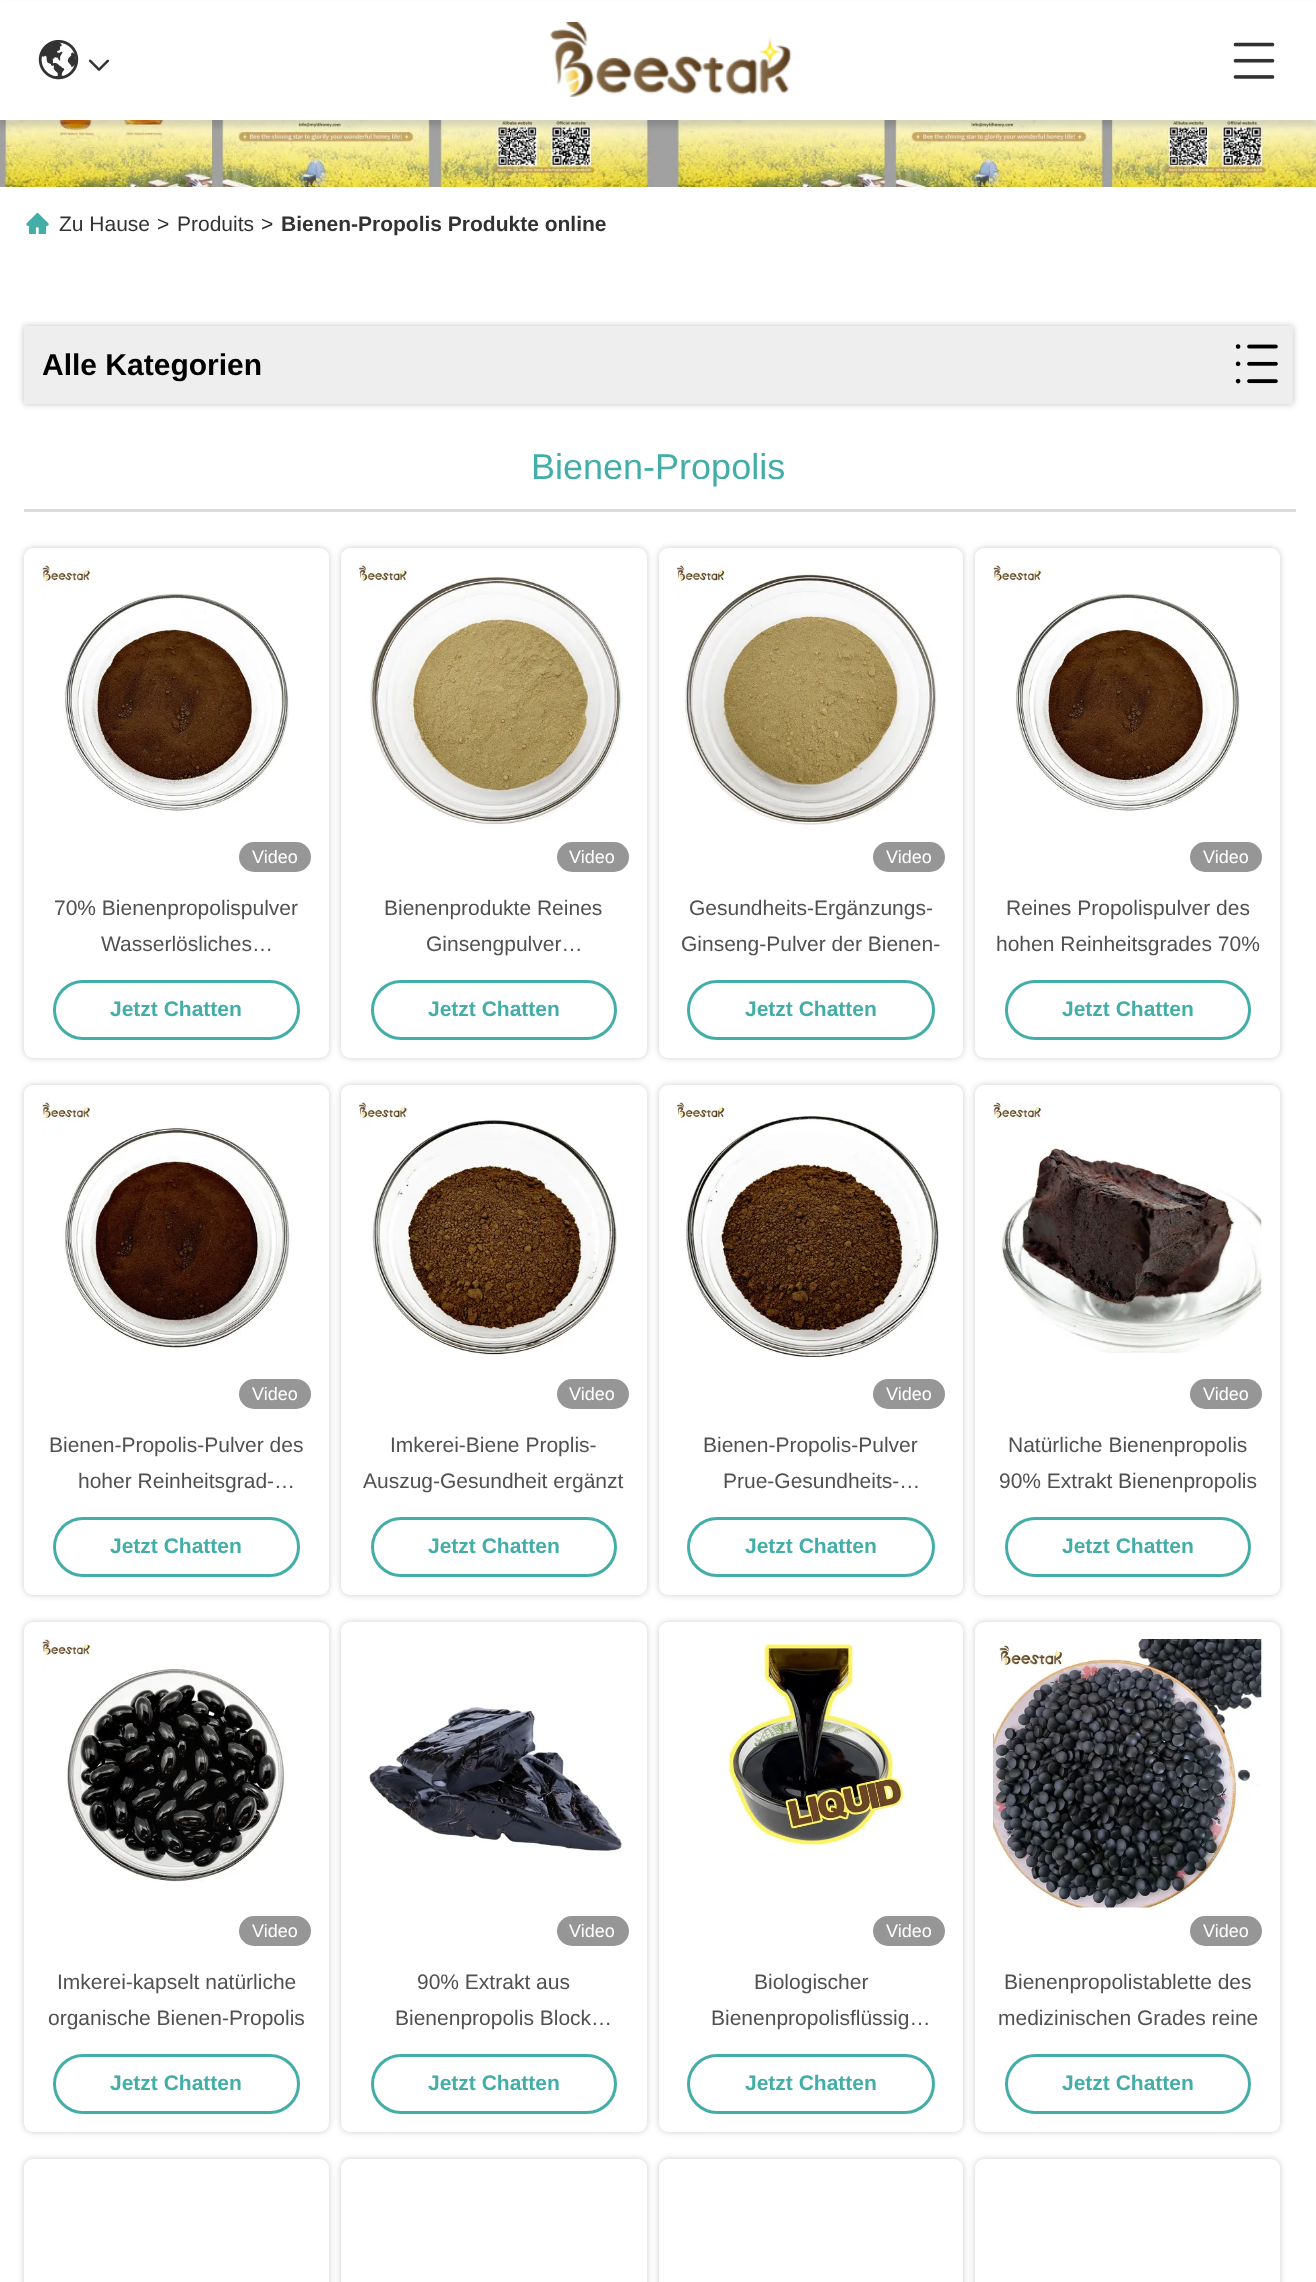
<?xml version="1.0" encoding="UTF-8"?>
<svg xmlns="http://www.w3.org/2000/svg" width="1316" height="2282">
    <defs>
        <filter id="blur1" x="-50%" y="-200%" width="200%" height="500%"><feGaussianBlur stdDeviation="3"/></filter>
    </defs>
    <rect width="100%" height="100%" fill="#FFFFFF"/>
    <image x="0" y="120" width="1316" height="67" href="img_05.png"/>
    <rect x="0" y="6" width="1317" height="120" fill="#000000" fill-opacity="0.15" filter="url(#blur1)"/>
    <rect x="0" y="2" width="1316" height="118" fill="#FFFFFF"/>
    <image x="38" y="39" width="41" height="41" href="img_01.png"/>
    <image x="88" y="59" width="21" height="12" href="img_02.png"/>
    <image x="550" y="22" width="242" height="75" href="img_03.png"/>
    <image x="1233" y="42" width="42" height="37" href="img_04.png"/>
    <image x="26" y="212" width="23" height="22" href="img_06.png"/>
    <text x="59" y="231" font-family="Liberation Sans" font-size="21" fill="#323232">Zu Hause</text>
    <text x="157" y="231" font-family="Liberation Sans" font-size="21" fill="#323232">&gt;</text>
    <text x="177" y="231" font-family="Liberation Sans" font-size="21" fill="#323232">Produits</text>
    <text x="261" y="231" font-family="Liberation Sans" font-size="21" fill="#323232">&gt;</text>
    <text x="281" y="231" font-family="Liberation Sans" font-size="21" font-weight="700" fill="#323232">Bienen-Propolis Produkte online</text>
    <rect x="24" y="326" width="1269" height="78" fill="#000000" fill-opacity="0.25" filter="url(#blur1)"/>
    <rect x="24" y="326" width="1269" height="78" fill="#EEEEEE"/>
    <text x="42" y="375" font-family="Liberation Sans" font-size="30" font-weight="700" fill="#000000">Alle Kategorien</text>
    <image x="1235" y="344" width="43" height="40" href="img_07.png"/>
    <text x="531" y="479" font-family="Liberation Sans" font-size="36" fill="#43ADA7">Bienen-Propolis</text>
    <rect x="24" y="509" width="1272" height="3" fill="#DCDCDC"/>
    <rect x="24" y="548" width="305" height="510" rx="9" fill="#000000" fill-opacity="0.2" filter="url(#blur1)"/>
    <rect x="24" y="548" width="305" height="510" rx="9" fill="#FFFFFF"/>
    <image x="42" y="565" width="247" height="247" href="img_08.png"/>
    <rect x="239" y="842" width="72" height="30" rx="15" fill="#969696"/>
    <text x="252" y="863" font-family="Liberation Sans" font-size="18" fill="#FFFFFF">Video</text>
    <text x="54" y="915" font-family="Liberation Sans" font-size="21" fill="#505050">70% Bienenpropolispulver</text>
    <text x="101" y="951" font-family="Liberation Sans" font-size="21" fill="#505050">Wasserlösliches…</text>
    <rect x="54.5" y="981.5" width="244" height="57" rx="28.5" fill="none" stroke="#43ADA7" stroke-width="3"/>
    <text x="110" y="1016" font-family="Liberation Sans" font-size="21" font-weight="700" fill="#43ADA7">Jetzt Chatten</text>
    <rect x="341" y="548" width="306" height="510" rx="9" fill="#000000" fill-opacity="0.2" filter="url(#blur1)"/>
    <rect x="341" y="548" width="306" height="510" rx="9" fill="#FFFFFF"/>
    <image x="358" y="565" width="265" height="261" href="img_09.png"/>
    <rect x="557" y="842" width="72" height="30" rx="15" fill="#969696"/>
    <text x="569" y="863" font-family="Liberation Sans" font-size="18" fill="#FFFFFF">Video</text>
    <text x="384" y="915" font-family="Liberation Sans" font-size="21" fill="#505050">Bienenprodukte Reines</text>
    <text x="426" y="951" font-family="Liberation Sans" font-size="21" fill="#505050">Ginsengpulver…</text>
    <rect x="372.5" y="981.5" width="243" height="57" rx="28.5" fill="none" stroke="#43ADA7" stroke-width="3"/>
    <text x="428" y="1016" font-family="Liberation Sans" font-size="21" font-weight="700" fill="#43ADA7">Jetzt Chatten</text>
    <rect x="659" y="548" width="304" height="510" rx="9" fill="#000000" fill-opacity="0.2" filter="url(#blur1)"/>
    <rect x="659" y="548" width="304" height="510" rx="9" fill="#FFFFFF"/>
    <image x="676" y="565" width="261" height="260" href="img_10.png"/>
    <rect x="873" y="842" width="72" height="30" rx="15" fill="#969696"/>
    <text x="886" y="863" font-family="Liberation Sans" font-size="18" fill="#FFFFFF">Video</text>
    <text x="689" y="915" font-family="Liberation Sans" font-size="21" fill="#505050">Gesundheits-Ergänzungs-</text>
    <text x="681" y="951" font-family="Liberation Sans" font-size="21" fill="#505050">Ginseng-Pulver der Bienen-</text>
    <rect x="688.5" y="981.5" width="245" height="57" rx="28.5" fill="none" stroke="#43ADA7" stroke-width="3"/>
    <text x="745" y="1016" font-family="Liberation Sans" font-size="21" font-weight="700" fill="#43ADA7">Jetzt Chatten</text>
    <rect x="975" y="548" width="305" height="510" rx="9" fill="#000000" fill-opacity="0.2" filter="url(#blur1)"/>
    <rect x="975" y="548" width="305" height="510" rx="9" fill="#FFFFFF"/>
    <image x="993" y="565" width="247" height="247" href="img_08.png"/>
    <rect x="1190" y="842" width="72" height="30" rx="15" fill="#969696"/>
    <text x="1203" y="863" font-family="Liberation Sans" font-size="18" fill="#FFFFFF">Video</text>
    <text x="1006" y="915" font-family="Liberation Sans" font-size="21" fill="#505050">Reines Propolispulver des</text>
    <text x="996" y="951" font-family="Liberation Sans" font-size="21" fill="#505050">hohen Reinheitsgrades 70%</text>
    <rect x="1006.5" y="981.5" width="243" height="57" rx="28.5" fill="none" stroke="#43ADA7" stroke-width="3"/>
    <text x="1062" y="1016" font-family="Liberation Sans" font-size="21" font-weight="700" fill="#43ADA7">Jetzt Chatten</text>
    <rect x="24" y="1085" width="305" height="510" rx="9" fill="#000000" fill-opacity="0.2" filter="url(#blur1)"/>
    <rect x="24" y="1085" width="305" height="510" rx="9" fill="#FFFFFF"/>
    <image x="42" y="1102" width="250" height="247" href="img_11.png"/>
    <rect x="239" y="1379" width="72" height="30" rx="15" fill="#969696"/>
    <text x="252" y="1400" font-family="Liberation Sans" font-size="18" fill="#FFFFFF">Video</text>
    <text x="49" y="1452" font-family="Liberation Sans" font-size="21" fill="#505050">Bienen-Propolis-Pulver des</text>
    <text x="78" y="1488" font-family="Liberation Sans" font-size="21" fill="#505050">hoher Reinheitsgrad-…</text>
    <rect x="54.5" y="1518.5" width="244" height="57" rx="28.5" fill="none" stroke="#43ADA7" stroke-width="3"/>
    <text x="110" y="1553" font-family="Liberation Sans" font-size="21" font-weight="700" fill="#43ADA7">Jetzt Chatten</text>
    <rect x="341" y="1085" width="306" height="510" rx="9" fill="#000000" fill-opacity="0.2" filter="url(#blur1)"/>
    <rect x="341" y="1085" width="306" height="510" rx="9" fill="#FFFFFF"/>
    <image x="358" y="1102" width="260" height="253" href="img_12.png"/>
    <rect x="557" y="1379" width="72" height="30" rx="15" fill="#969696"/>
    <text x="569" y="1400" font-family="Liberation Sans" font-size="18" fill="#FFFFFF">Video</text>
    <text x="390" y="1452" font-family="Liberation Sans" font-size="21" fill="#505050">Imkerei-Biene Proplis-</text>
    <text x="363" y="1488" font-family="Liberation Sans" font-size="21" fill="#505050">Auszug-Gesundheit ergänzt</text>
    <rect x="372.5" y="1518.5" width="243" height="57" rx="28.5" fill="none" stroke="#43ADA7" stroke-width="3"/>
    <text x="428" y="1553" font-family="Liberation Sans" font-size="21" font-weight="700" fill="#43ADA7">Jetzt Chatten</text>
    <rect x="659" y="1085" width="304" height="510" rx="9" fill="#000000" fill-opacity="0.2" filter="url(#blur1)"/>
    <rect x="659" y="1085" width="304" height="510" rx="9" fill="#FFFFFF"/>
    <image x="676" y="1102" width="264" height="255" href="img_13.png"/>
    <rect x="873" y="1379" width="72" height="30" rx="15" fill="#969696"/>
    <text x="886" y="1400" font-family="Liberation Sans" font-size="18" fill="#FFFFFF">Video</text>
    <text x="703" y="1452" font-family="Liberation Sans" font-size="21" fill="#505050">Bienen-Propolis-Pulver</text>
    <text x="723" y="1488" font-family="Liberation Sans" font-size="21" fill="#505050">Prue-Gesundheits-…</text>
    <rect x="688.5" y="1518.5" width="245" height="57" rx="28.5" fill="none" stroke="#43ADA7" stroke-width="3"/>
    <text x="745" y="1553" font-family="Liberation Sans" font-size="21" font-weight="700" fill="#43ADA7">Jetzt Chatten</text>
    <rect x="975" y="1085" width="305" height="510" rx="9" fill="#000000" fill-opacity="0.2" filter="url(#blur1)"/>
    <rect x="975" y="1085" width="305" height="510" rx="9" fill="#FFFFFF"/>
    <image x="993" y="1102" width="269" height="252" href="img_14.png"/>
    <rect x="1190" y="1379" width="72" height="30" rx="15" fill="#969696"/>
    <text x="1203" y="1400" font-family="Liberation Sans" font-size="18" fill="#FFFFFF">Video</text>
    <text x="1008" y="1452" font-family="Liberation Sans" font-size="21" fill="#505050">Natürliche Bienenpropolis</text>
    <text x="999" y="1488" font-family="Liberation Sans" font-size="21" fill="#505050">90% Extrakt Bienenpropolis</text>
    <rect x="1006.5" y="1518.5" width="243" height="57" rx="28.5" fill="none" stroke="#43ADA7" stroke-width="3"/>
    <text x="1062" y="1553" font-family="Liberation Sans" font-size="21" font-weight="700" fill="#43ADA7">Jetzt Chatten</text>
    <rect x="24" y="1622" width="305" height="510" rx="9" fill="#000000" fill-opacity="0.2" filter="url(#blur1)"/>
    <rect x="24" y="1622" width="305" height="510" rx="9" fill="#FFFFFF"/>
    <image x="42" y="1639" width="245" height="243" href="img_15.png"/>
    <rect x="239" y="1916" width="72" height="30" rx="15" fill="#969696"/>
    <text x="252" y="1937" font-family="Liberation Sans" font-size="18" fill="#FFFFFF">Video</text>
    <text x="57" y="1989" font-family="Liberation Sans" font-size="21" fill="#505050">Imkerei-kapselt natürliche</text>
    <text x="48" y="2025" font-family="Liberation Sans" font-size="21" fill="#505050">organische Bienen-Propolis</text>
    <rect x="54.5" y="2055.5" width="244" height="57" rx="28.5" fill="none" stroke="#43ADA7" stroke-width="3"/>
    <text x="110" y="2090" font-family="Liberation Sans" font-size="21" font-weight="700" fill="#43ADA7">Jetzt Chatten</text>
    <rect x="341" y="1622" width="306" height="510" rx="9" fill="#000000" fill-opacity="0.2" filter="url(#blur1)"/>
    <rect x="341" y="1622" width="306" height="510" rx="9" fill="#FFFFFF"/>
    <image x="369" y="1706" width="254" height="147" href="img_16.png"/>
    <rect x="557" y="1916" width="72" height="30" rx="15" fill="#969696"/>
    <text x="569" y="1937" font-family="Liberation Sans" font-size="18" fill="#FFFFFF">Video</text>
    <text x="417" y="1989" font-family="Liberation Sans" font-size="21" fill="#505050">90% Extrakt aus</text>
    <text x="395" y="2025" font-family="Liberation Sans" font-size="21" fill="#505050">Bienenpropolis Block…</text>
    <rect x="372.5" y="2055.5" width="243" height="57" rx="28.5" fill="none" stroke="#43ADA7" stroke-width="3"/>
    <text x="428" y="2090" font-family="Liberation Sans" font-size="21" font-weight="700" fill="#43ADA7">Jetzt Chatten</text>
    <rect x="659" y="1622" width="304" height="510" rx="9" fill="#000000" fill-opacity="0.2" filter="url(#blur1)"/>
    <rect x="659" y="1622" width="304" height="510" rx="9" fill="#FFFFFF"/>
    <image x="727" y="1639" width="179" height="208" href="img_17.png"/>
    <rect x="873" y="1916" width="72" height="30" rx="15" fill="#969696"/>
    <text x="886" y="1937" font-family="Liberation Sans" font-size="18" fill="#FFFFFF">Video</text>
    <text x="754" y="1989" font-family="Liberation Sans" font-size="21" fill="#505050">Biologischer</text>
    <text x="711" y="2025" font-family="Liberation Sans" font-size="21" fill="#505050">Bienenpropolisflüssig…</text>
    <rect x="688.5" y="2055.5" width="245" height="57" rx="28.5" fill="none" stroke="#43ADA7" stroke-width="3"/>
    <text x="745" y="2090" font-family="Liberation Sans" font-size="21" font-weight="700" fill="#43ADA7">Jetzt Chatten</text>
    <rect x="975" y="1622" width="305" height="510" rx="9" fill="#000000" fill-opacity="0.2" filter="url(#blur1)"/>
    <rect x="975" y="1622" width="305" height="510" rx="9" fill="#FFFFFF"/>
    <image x="993" y="1639" width="269" height="269" href="img_18.png"/>
    <rect x="1190" y="1916" width="72" height="30" rx="15" fill="#969696"/>
    <text x="1203" y="1937" font-family="Liberation Sans" font-size="18" fill="#FFFFFF">Video</text>
    <text x="1004" y="1989" font-family="Liberation Sans" font-size="21" fill="#505050">Bienenpropolistablette des</text>
    <text x="998" y="2025" font-family="Liberation Sans" font-size="21" fill="#505050">medizinischen Grades reine</text>
    <rect x="1006.5" y="2055.5" width="243" height="57" rx="28.5" fill="none" stroke="#43ADA7" stroke-width="3"/>
    <text x="1062" y="2090" font-family="Liberation Sans" font-size="21" font-weight="700" fill="#43ADA7">Jetzt Chatten</text>
    <rect x="24" y="2159" width="305" height="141" rx="9" fill="#000000" fill-opacity="0.2" filter="url(#blur1)"/>
    <rect x="24" y="2159" width="305" height="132" rx="9" fill="#FFFFFF"/>
    <rect x="341" y="2159" width="306" height="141" rx="9" fill="#000000" fill-opacity="0.2" filter="url(#blur1)"/>
    <rect x="341" y="2159" width="306" height="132" rx="9" fill="#FFFFFF"/>
    <rect x="659" y="2159" width="304" height="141" rx="9" fill="#000000" fill-opacity="0.2" filter="url(#blur1)"/>
    <rect x="659" y="2159" width="304" height="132" rx="9" fill="#FFFFFF"/>
    <rect x="975" y="2159" width="305" height="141" rx="9" fill="#000000" fill-opacity="0.2" filter="url(#blur1)"/>
    <rect x="975" y="2159" width="305" height="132" rx="9" fill="#FFFFFF"/>
</svg>
